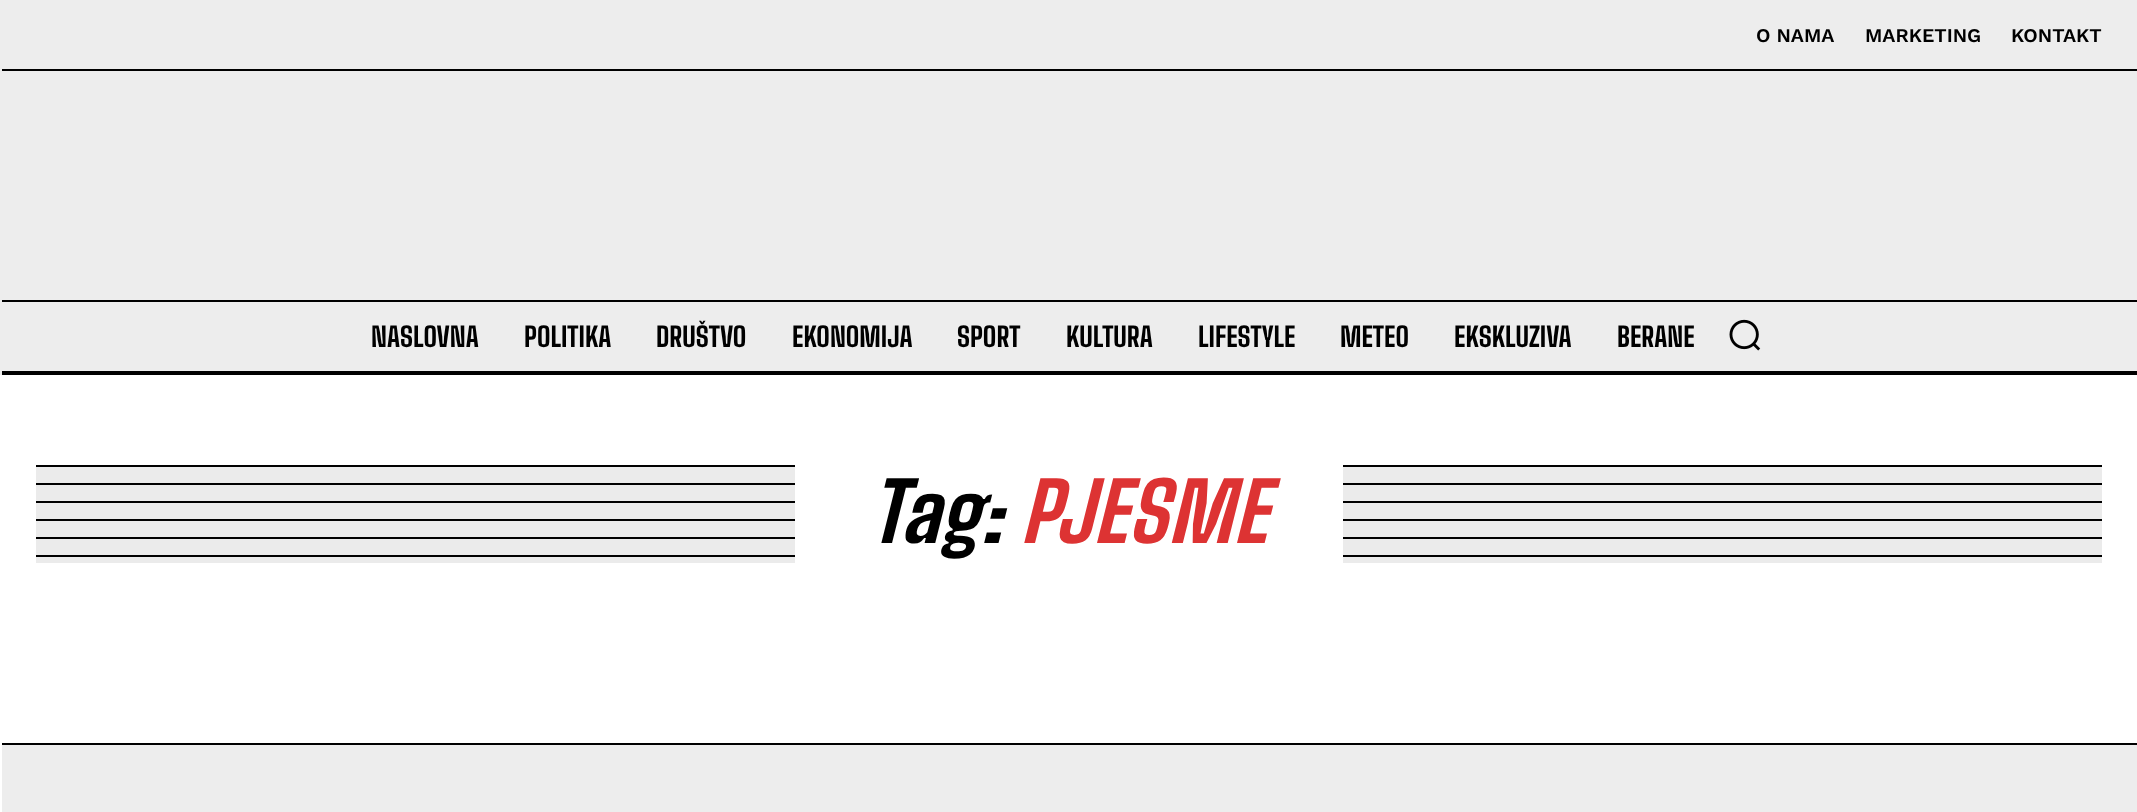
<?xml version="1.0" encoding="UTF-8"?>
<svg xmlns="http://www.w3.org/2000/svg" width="2137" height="812">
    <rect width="100%" height="100%" fill="#FFFFFF"/>
    <rect x="36" y="467" width="2066" height="96" fill="#EBEBEB"/>
    <rect x="0" y="0" width="2137" height="375" fill="#EDEDED"/>
    <text x="1756" y="42" font-family="Work Sans" font-size="19.5" font-weight="600" fill="#000000">O NAMA</text>
    <text x="1865" y="42" font-family="Work Sans" font-size="19.5" font-weight="600" fill="#000000">MARKETING</text>
    <text x="2011" y="42" font-family="Work Sans" font-size="19.5" font-weight="600" fill="#000000">KONTAKT</text>
    <rect x="2" y="69" width="2135" height="2" fill="#000000"/>
    <rect x="2" y="300" width="2135" height="2" fill="#000000"/>
    <rect x="2" y="371" width="2135" height="4" fill="#000000"/>
    <text x="371" y="347" font-family="Big Shoulders Text" font-size="27" font-weight="800" fill="#000000">NASLOVNA</text>
    <text x="524" y="347" font-family="Big Shoulders Text" font-size="27" font-weight="800" fill="#000000">POLITIKA</text>
    <text x="656" y="347" font-family="Big Shoulders Text" font-size="27" font-weight="800" fill="#000000">DRUŠTVO</text>
    <text x="792" y="347" font-family="Big Shoulders Text" font-size="27" font-weight="800" fill="#000000">EKONOMIJA</text>
    <text x="957" y="347" font-family="Big Shoulders Text" font-size="27" font-weight="800" fill="#000000">SPORT</text>
    <text x="1066" y="347" font-family="Big Shoulders Text" font-size="27" font-weight="800" fill="#000000">KULTURA</text>
    <text x="1198" y="347" font-family="Big Shoulders Text" font-size="27" font-weight="800" fill="#000000">LIFESTYLE</text>
    <text x="1340" y="347" font-family="Big Shoulders Text" font-size="27" font-weight="800" fill="#000000">METEO</text>
    <text x="1454" y="347" font-family="Big Shoulders Text" font-size="27" font-weight="800" fill="#000000">EKSKLUZIVA</text>
    <text x="1617" y="347" font-family="Big Shoulders Text" font-size="27" font-weight="800" fill="#000000">BERANE</text>
    <image x="1729" y="319" width="32" height="32" href="img_01.png"/>
    <rect x="36" y="465" width="2066" height="2" fill="#000000"/>
    <rect x="36" y="483" width="2066" height="2" fill="#000000"/>
    <rect x="36" y="501" width="2066" height="2" fill="#000000"/>
    <rect x="36" y="519" width="2066" height="2" fill="#000000"/>
    <rect x="36" y="537" width="2066" height="2" fill="#000000"/>
    <rect x="36" y="555" width="2066" height="2" fill="#000000"/>
    <rect x="795" y="465" width="548" height="98" fill="#FFFFFF"/>
    <text x="870" y="543" font-family="Big Shoulders Text" font-size="81" font-weight="800" font-style="italic" letter-spacing="0.75" fill="#000000">Tag:</text>
    <text x="1020" y="543" font-family="Big Shoulders Text" font-size="81" font-weight="800" font-style="italic" letter-spacing="0.75" fill="#DD3333">PJESME</text>
    <rect x="2" y="745" width="2135" height="67" fill="#EDEDED"/>
    <rect x="2" y="743" width="2135" height="2" fill="#000000"/>
</svg>
